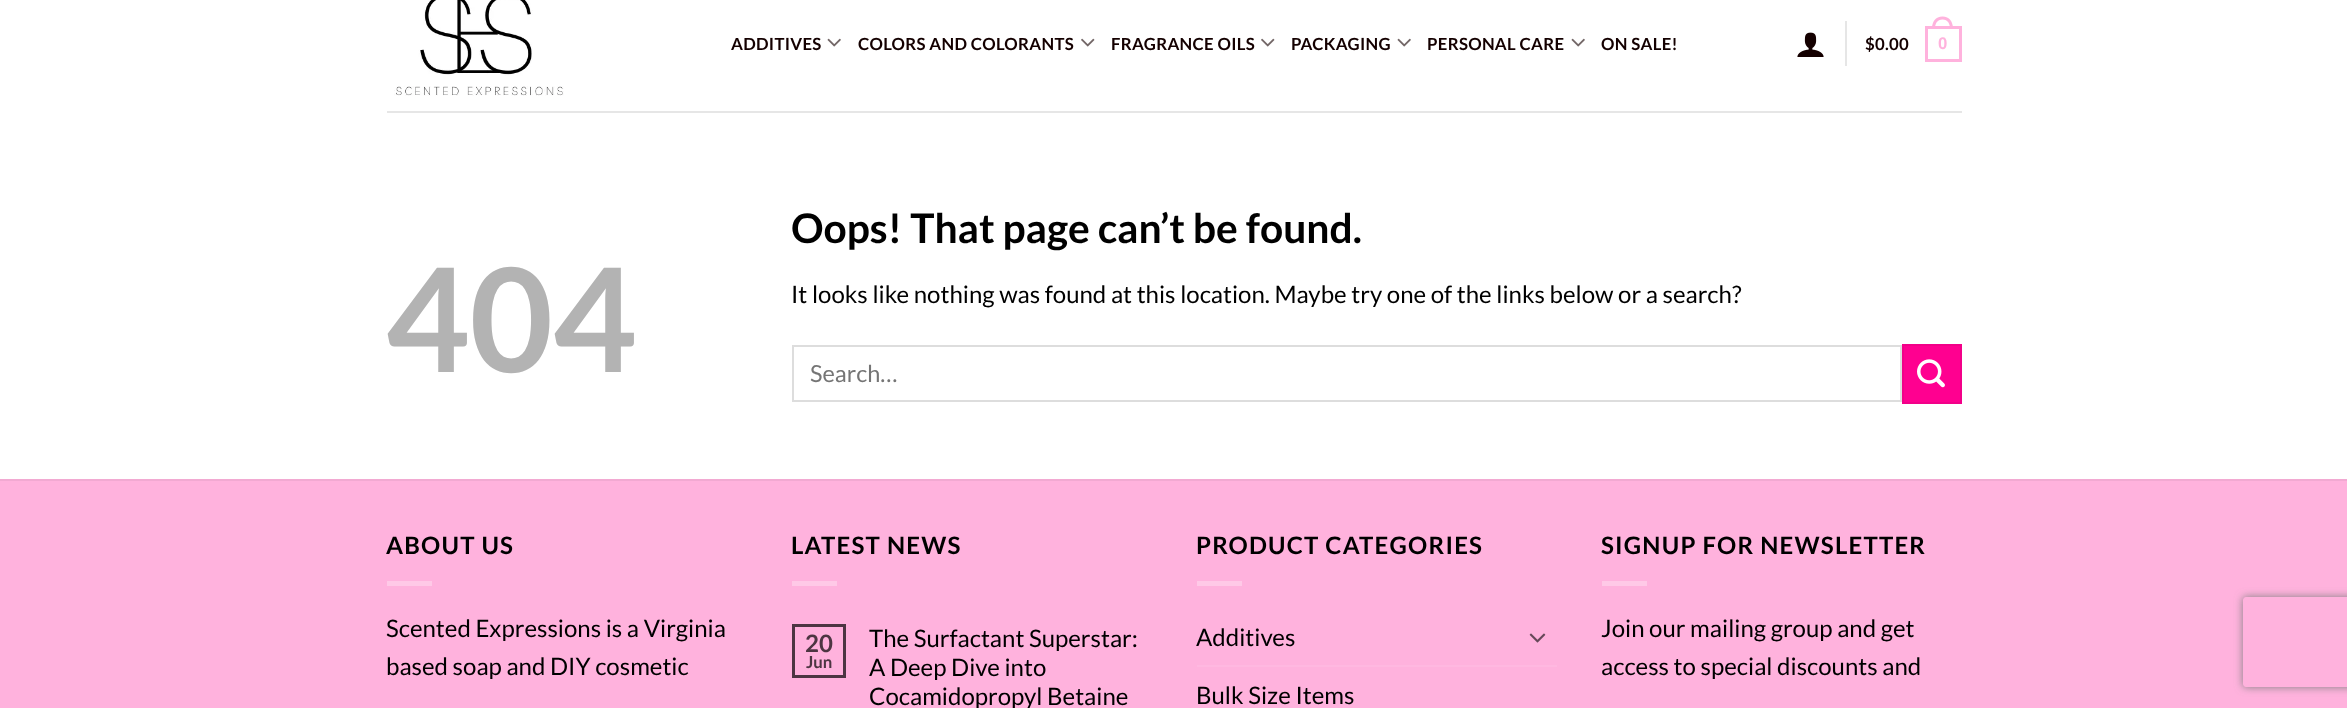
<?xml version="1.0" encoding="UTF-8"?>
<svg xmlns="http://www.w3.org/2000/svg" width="2347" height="708">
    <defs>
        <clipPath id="clip1"><path d="M 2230 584 H 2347 V 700 H 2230 Z M 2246 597 H 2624 C 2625.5 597 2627 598.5 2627 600 V 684 C 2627 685.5 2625.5 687 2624 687 H 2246 C 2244.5 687 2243 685.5 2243 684 V 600 C 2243 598.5 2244.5 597 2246 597 Z" clip-rule="evenodd"/></clipPath>
        <filter id="blur1" x="-50%" y="-200%" width="200%" height="500%"><feGaussianBlur stdDeviation="4"/></filter>
    </defs>
    <rect width="100%" height="100%" fill="#FFFFFF"/>
    <image x="394" y="0" width="170" height="96" href="img_01.png"/>
    <text x="731" y="50" font-family="Lato" font-size="16.75" font-weight="700" letter-spacing="0.3" fill="#140000">ADDITIVES</text>
    <image x="827" y="38" width="14" height="9" href="img_02.png"/>
    <text x="858" y="50" font-family="Lato" font-size="16.75" font-weight="700" letter-spacing="0.3" fill="#140000">COLORS AND COLORANTS</text>
    <image x="1081" y="38" width="14" height="9" href="img_03.png"/>
    <text x="1111" y="50" font-family="Lato" font-size="16.75" font-weight="700" letter-spacing="0.3" fill="#140000">FRAGRANCE OILS</text>
    <image x="1261" y="38" width="14" height="9" href="img_03.png"/>
    <text x="1291" y="50" font-family="Lato" font-size="16.75" font-weight="700" letter-spacing="0.3" fill="#140000">PACKAGING</text>
    <image x="1397" y="38" width="14" height="9" href="img_02.png"/>
    <text x="1427" y="50" font-family="Lato" font-size="16.75" font-weight="700" letter-spacing="0.3" fill="#140000">PERSONAL CARE</text>
    <image x="1571" y="38" width="14" height="9" href="img_02.png"/>
    <text x="1601" y="50" font-family="Lato" font-size="16.75" font-weight="700" letter-spacing="0.3" fill="#140000">ON SALE!</text>
    <image x="1797" y="32" width="27" height="25" href="img_04.png"/>
    <rect x="1845" y="21" width="2" height="45" fill="#E6E6E6"/>
    <text x="1865" y="50" font-family="Lato" font-size="16.75" font-weight="700" letter-spacing="0.3" fill="#140000">$0.00</text>
    <rect x="1926.5" y="27.5" width="34" height="33" fill="none" stroke="#FFB2DD" stroke-width="3"/>
    <path d="M 1942.5 16.5 C 1949.5 16.5 1953 22 1953 28.5 H 1932 C 1932 22 1935.5 16.5 1942.5 16.5 Z M 1942.5 19.5 C 1948 19.5 1950 24 1950 28.5 H 1935 C 1935 24 1937 19.5 1942.5 19.5 Z" fill="#FFB2DD" fill-rule="evenodd"/>
    <text x="1938" y="49" font-family="Liberation Sans" font-size="16.75" font-weight="700" letter-spacing="0.3" fill="#FFB2DD">0</text>
    <rect x="387" y="111" width="1575" height="2" fill="#E6E6E6"/>
    <text x="386" y="372" font-family="Lato" font-size="144" font-weight="700" fill="#B3B3B3">404</text>
    <text x="791" y="243" font-family="Lato" font-size="40.75" font-weight="700" fill="#000000">Oops! That page can’t be found.</text>
    <text x="791" y="303" font-family="Lato" font-size="24" fill="#000000">It looks like nothing was found at this location. Maybe try one of the links below or a search?</text>
    <rect x="793" y="346" width="1108" height="55" fill="none" stroke="#DDDDDD" stroke-width="2"/>
    <text x="810" y="382" font-family="Lato" font-size="23.5" fill="#757575">Search…</text>
    <rect x="1903" y="345" width="58" height="58" fill="#FF0090" stroke="#F20089" stroke-width="2"/>
    <image x="1917" y="359" width="28" height="29" href="img_05.png"/>
    <rect x="0" y="481" width="2347" height="227" fill="#FFB2DD"/>
    <rect x="0" y="479" width="2347" height="2" fill="#F2A9D2"/>
    <text x="386" y="554" font-family="Lato" font-size="24" font-weight="700" letter-spacing="1.2" fill="#000000">ABOUT US</text>
    <rect x="387" y="581" width="45" height="5" fill="#FFC9E7"/>
    <text font-family="Lato" font-size="24" fill="#000000">
        <tspan x="386" y="637">Scented Expressions is a Virginia</tspan>
        <tspan x="386" y="675">based soap and DIY cosmetic</tspan>
    </text>
    <text x="791" y="554" font-family="Lato" font-size="24" font-weight="700" letter-spacing="1.2" fill="#000000">LATEST NEWS</text>
    <rect x="792" y="581" width="45" height="5" fill="#FFC9E7"/>
    <rect x="793.5" y="625.5" width="51" height="51" fill="none" stroke="#4D3542" stroke-width="3"/>
    <text x="805" y="652" font-family="Lato" font-size="24" font-weight="700" fill="#4D3542">20</text>
    <text x="806" y="668" font-family="Lato" font-size="16.75" font-weight="700" fill="#4D3542">Jun</text>
    <text font-family="Lato" font-size="24" fill="#000000">
        <tspan x="869" y="647">The Surfactant Superstar:</tspan>
        <tspan x="869" y="676">A Deep Dive into</tspan>
        <tspan x="869" y="705">Cocamidopropyl Betaine</tspan>
    </text>
    <text x="1196" y="554" font-family="Lato" font-size="24" font-weight="700" letter-spacing="1.2" fill="#000000">PRODUCT CATEGORIES</text>
    <rect x="1197" y="581" width="45" height="5" fill="#FFC9E7"/>
    <text x="1196" y="646" font-family="Lato" font-size="24" fill="#000000">Additives</text>
    <image x="1529" y="633" width="17" height="10" href="img_06.png"/>
    <rect x="1197" y="665" width="360" height="2" fill="#FFB8E0"/>
    <text x="1196" y="704" font-family="Lato" font-size="24" fill="#000000">Bulk Size Items</text>
    <text x="1601" y="554" font-family="Lato" font-size="24" font-weight="700" letter-spacing="1.2" fill="#000000">SIGNUP FOR NEWSLETTER</text>
    <rect x="1602" y="581" width="45" height="5" fill="#FFC9E7"/>
    <text font-family="Lato" font-size="24" fill="#000000">
        <tspan x="1601" y="637">Join our mailing group and get</tspan>
        <tspan x="1601" y="675">access to special discounts and</tspan>
    </text>
    <g clip-path="url(#clip1)">
        <rect x="2243" y="597" width="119" height="90" rx="3" fill="#808080" filter="url(#blur1)"/>
    </g>
</svg>
